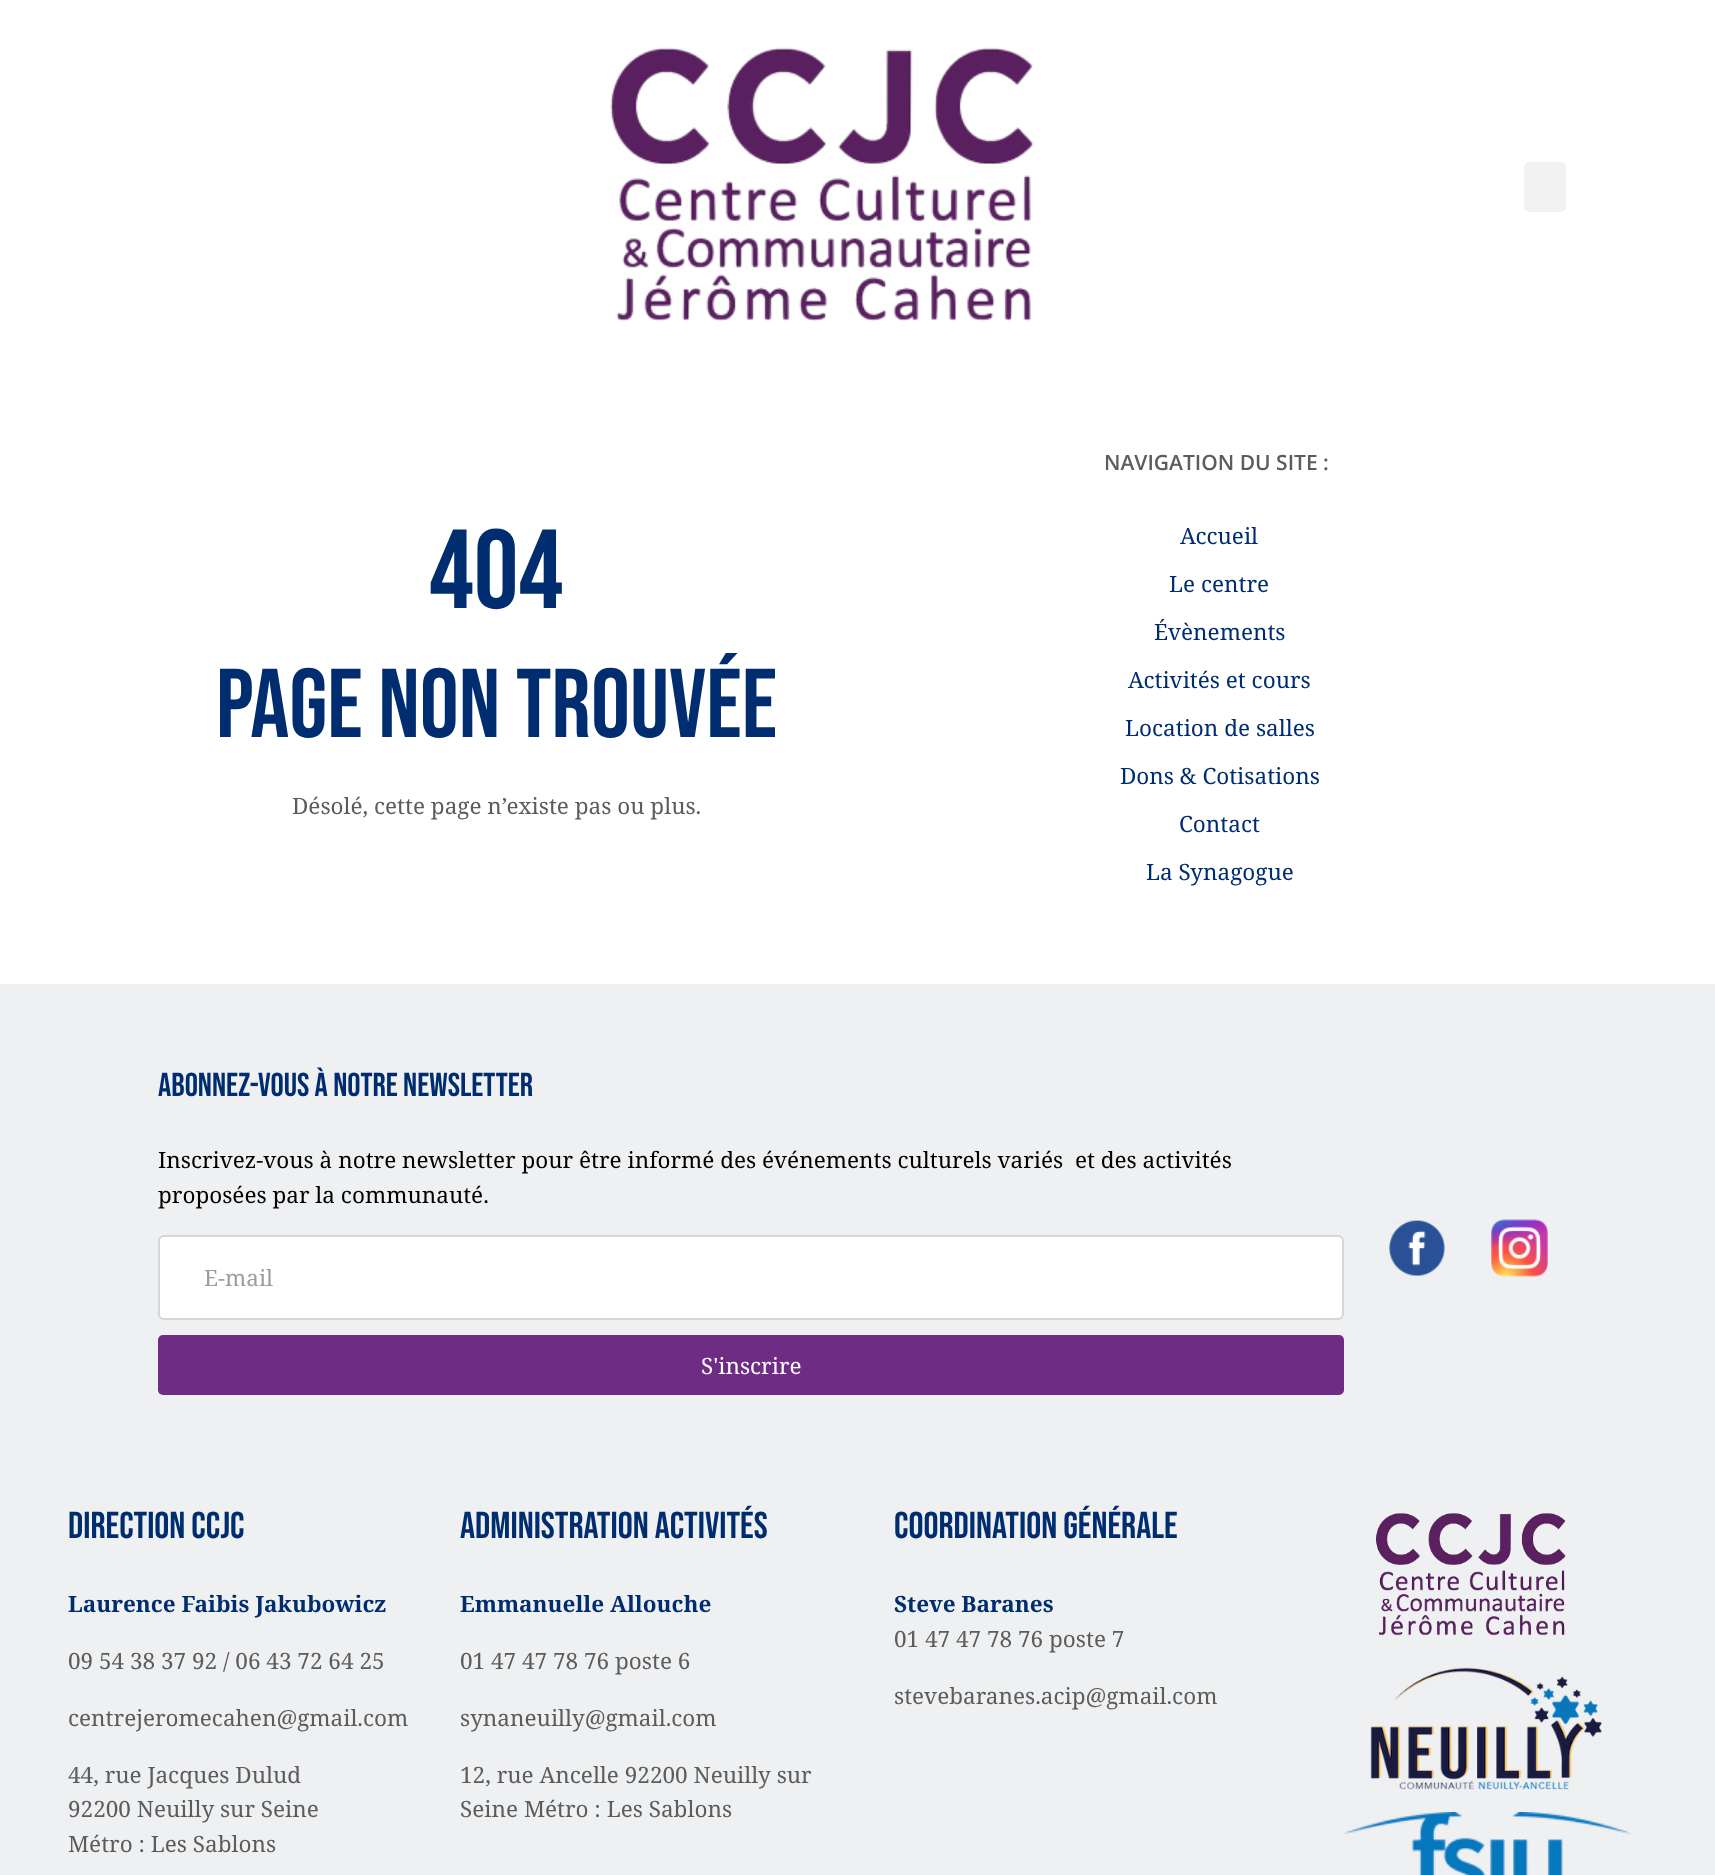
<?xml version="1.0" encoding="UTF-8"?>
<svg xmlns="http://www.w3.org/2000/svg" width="1715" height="1875">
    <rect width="100%" height="100%" fill="#FFFFFF"/>
    <image x="610" y="47" width="424" height="275" href="img_01.png"/>
    <rect x="1524" y="162" width="42" height="50" rx="5" fill="#F2F2F2"/>
    <text x="429" y="608" font-family="Bebas Neue" font-size="112" fill="#002D70">404</text>
    <text x="216" y="737" font-family="Bebas Neue" font-size="97.5" fill="#002D70">Page non trouvée</text>
    <text x="292" y="814" font-family="Noto Serif" font-size="22.5" fill="#5C5C5C">Désolé, cette page n’existe pas ou plus.</text>
    <text x="1104" y="470" font-family="Open Sans" font-size="21" font-weight="600" fill="#5C5C5C">NAVIGATION DU SITE :</text>
    <text x="1180" y="544" font-family="Noto Serif" font-size="22.5" fill="#002D70">Accueil</text>
    <text x="1169" y="592" font-family="Noto Serif" font-size="22.5" fill="#002D70">Le centre</text>
    <text x="1154" y="640" font-family="Noto Serif" font-size="22.5" fill="#002D70">Évènements</text>
    <text x="1128" y="688" font-family="Noto Serif" font-size="22.5" fill="#002D70">Activités et cours</text>
    <text x="1125" y="736" font-family="Noto Serif" font-size="22.5" fill="#002D70">Location de salles</text>
    <text x="1120" y="784" font-family="Noto Serif" font-size="22.5" fill="#002D70">Dons &amp; Cotisations</text>
    <text x="1179" y="832" font-family="Noto Serif" font-size="22.5" fill="#002D70">Contact</text>
    <text x="1146" y="880" font-family="Noto Serif" font-size="22.5" fill="#002D70">La Synagogue</text>
    <rect x="0" y="984" width="1715" height="891" fill="#EFF0F2"/>
    <text x="158" y="1096" font-family="Bebas Neue" font-size="33.1" fill="#002D70">Abonnez-vous à notre Newsletter</text>
    <text font-family="Noto Serif" font-size="22.5" fill="#000000" xml:space="preserve"><tspan x="158" y="1168">Inscrivez-vous à notre newsletter pour être informé des événements culturels variés  et des activités</tspan><tspan x="158" y="1203">proposées par la communauté.</tspan></text>
    <rect x="159" y="1236" width="1184" height="83" rx="5" fill="#FFFFFF" stroke="#D4D6D9" stroke-width="2"/>
    <text x="204" y="1286" font-family="Noto Serif" font-size="22.5" fill="#9D9D9D">E-mail</text>
    <rect x="158" y="1335" width="1186" height="60" rx="5" fill="#6E2C85"/>
    <text x="701" y="1374" font-family="Noto Serif" font-size="22.5" fill="#FFFFFF">S'inscrire</text>
    <image x="1389" y="1220" width="56" height="57" href="img_02.png"/>
    <image x="1491" y="1219" width="57" height="58" href="img_03.png"/>
    <text x="68" y="1538" font-family="Bebas Neue" font-size="37.5" fill="#002D70">Direction CCJC</text>
    <text x="68" y="1612" font-family="Noto Serif" font-size="22.5" font-weight="700" fill="#002D70">Laurence Faibis Jakubowicz</text>
    <text x="68" y="1669" font-family="Noto Serif" font-size="22.5" fill="#5C5C5C">09 54 38 37 92 / 06 43 72 64 25</text>
    <text x="68" y="1726" font-family="Noto Serif" font-size="22.5" fill="#5C5C5C">centrejeromecahen@gmail.com</text>
    <text font-family="Noto Serif" font-size="22.5" fill="#5C5C5C">
        <tspan x="68" y="1783">44, rue Jacques Dulud</tspan>
        <tspan x="68" y="1817">92200 Neuilly sur Seine</tspan>
        <tspan x="68" y="1852">Métro : Les Sablons</tspan>
    </text>
    <text x="460" y="1538" font-family="Bebas Neue" font-size="37.5" fill="#002D70">administration activités</text>
    <text x="460" y="1612" font-family="Noto Serif" font-size="22.5" font-weight="700" fill="#002D70">Emmanuelle Allouche</text>
    <text x="460" y="1669" font-family="Noto Serif" font-size="22.5" fill="#5C5C5C">01 47 47 78 76 poste 6</text>
    <text x="460" y="1726" font-family="Noto Serif" font-size="22.5" fill="#5C5C5C">synaneuilly@gmail.com</text>
    <text font-family="Noto Serif" font-size="22.5" fill="#5C5C5C">
        <tspan x="460" y="1783">12, rue Ancelle 92200 Neuilly sur</tspan>
        <tspan x="460" y="1817">Seine Métro : Les Sablons</tspan>
    </text>
    <text x="894" y="1538" font-family="Bebas Neue" font-size="37.5" fill="#002D70">Coordination générale</text>
    <text x="894" y="1612" font-family="Noto Serif" font-size="22.5" font-weight="700" fill="#002D70">Steve Baranes</text>
    <text x="894" y="1647" font-family="Noto Serif" font-size="22.5" fill="#5C5C5C">01 47 47 78 76 poste 7</text>
    <text x="894" y="1704" font-family="Noto Serif" font-size="22.5" fill="#5C5C5C">stevebaranes.acip@gmail.com</text>
    <image x="1376" y="1513" width="190" height="123" href="img_04.png"/>
    <image x="1370" y="1667" width="232" height="123" href="img_05.png"/>
    <image x="1343" y="1812" width="288" height="63" href="img_06.png"/>
</svg>
